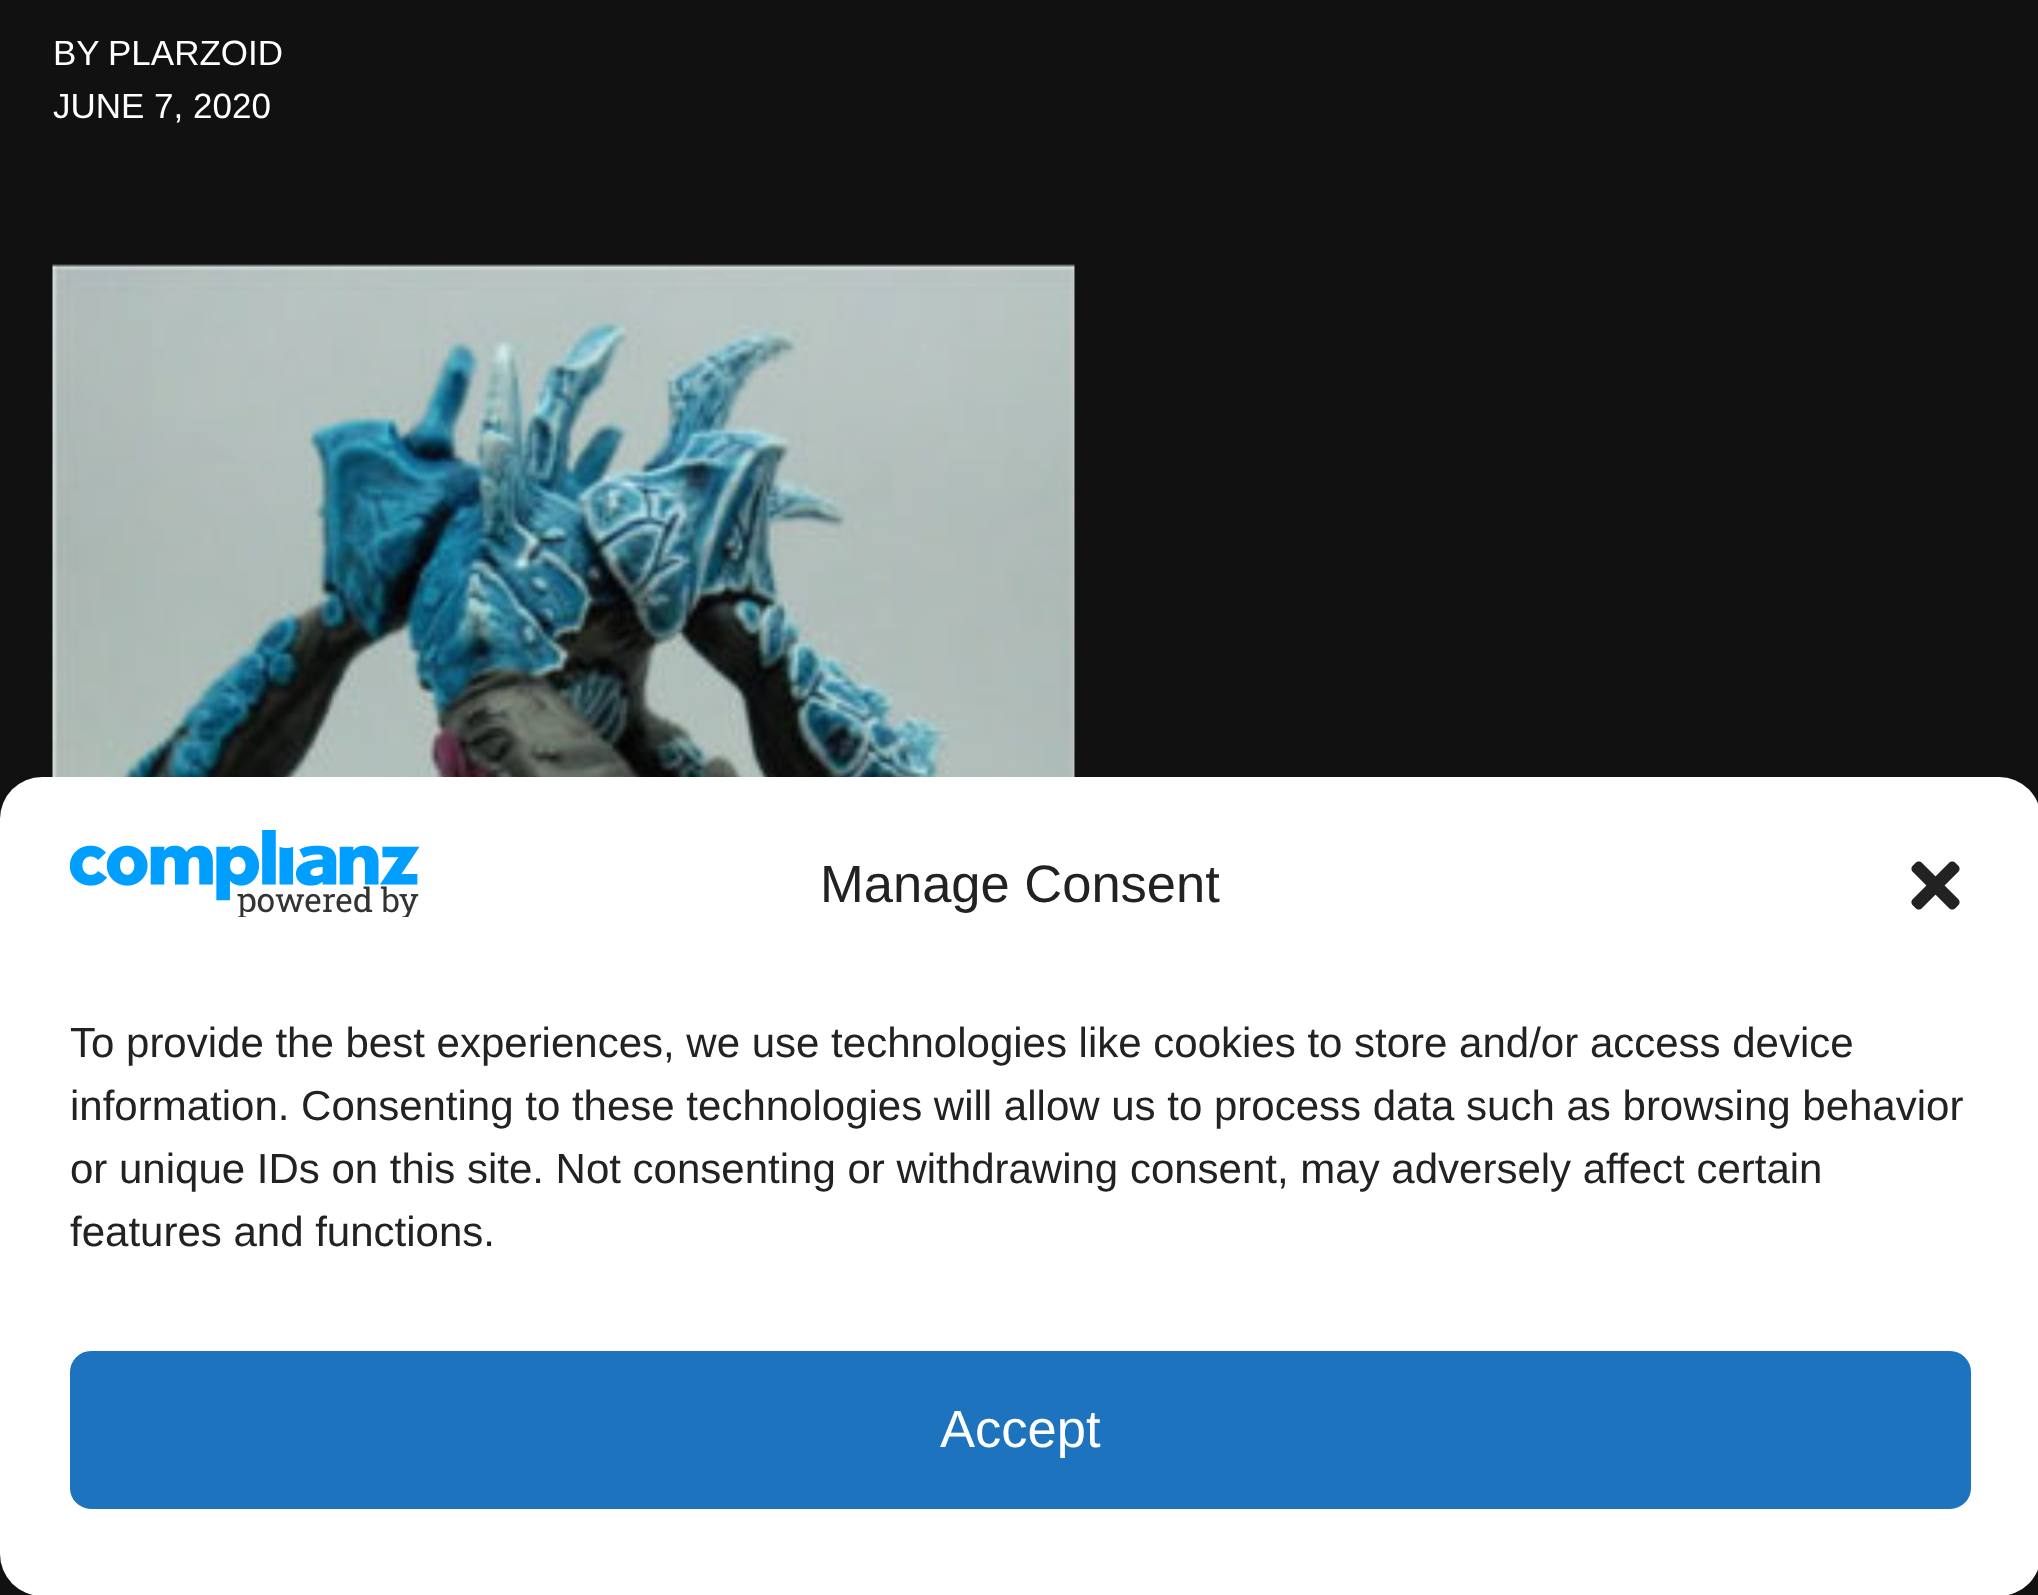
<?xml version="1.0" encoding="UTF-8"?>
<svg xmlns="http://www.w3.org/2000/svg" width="2038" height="1595">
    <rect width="100%" height="100%" fill="#111111"/>
    <text x="53" y="65" font-family="Liberation Sans" font-size="35" fill="#FFFFFF">BY</text>
    <text x="108" y="65" font-family="Liberation Sans" font-size="35" fill="#FFFFFF">PLARZOID</text>
    <text x="53" y="118" font-family="Liberation Sans" font-size="35" fill="#FFFFFF">JUNE 7, 2020</text>
    <image x="52" y="264" width="1023" height="513" href="img_01.png"/>
    <rect x="0" y="777" width="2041" height="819" rx="42" fill="#FFFFFF"/>
    <image x="70" y="830" width="350" height="87" href="img_02.png"/>
    <text x="820" y="902" font-family="Liberation Sans" font-size="52.5" fill="#222222">Manage Consent</text>
    <image x="1911" y="861" width="49" height="49" href="img_03.png"/>
    <text font-family="Liberation Sans" font-size="42" fill="#222222">
        <tspan x="70" y="1057">To provide the best experiences, we use technologies like cookies to store and/or access device</tspan>
        <tspan x="70" y="1120">information. Consenting to these technologies will allow us to process data such as browsing behavior</tspan>
        <tspan x="70" y="1183">or unique IDs on this site. Not consenting or withdrawing consent, may adversely affect certain</tspan>
        <tspan x="70" y="1246">features and functions.</tspan>
    </text>
    <rect x="72" y="1353" width="1897" height="154" rx="19" fill="#1E73BE" stroke="#1E73BE" stroke-width="4"/>
    <text x="940" y="1447" font-family="Liberation Sans" font-size="52.5" fill="#FFFFFF">Accept</text>
</svg>
